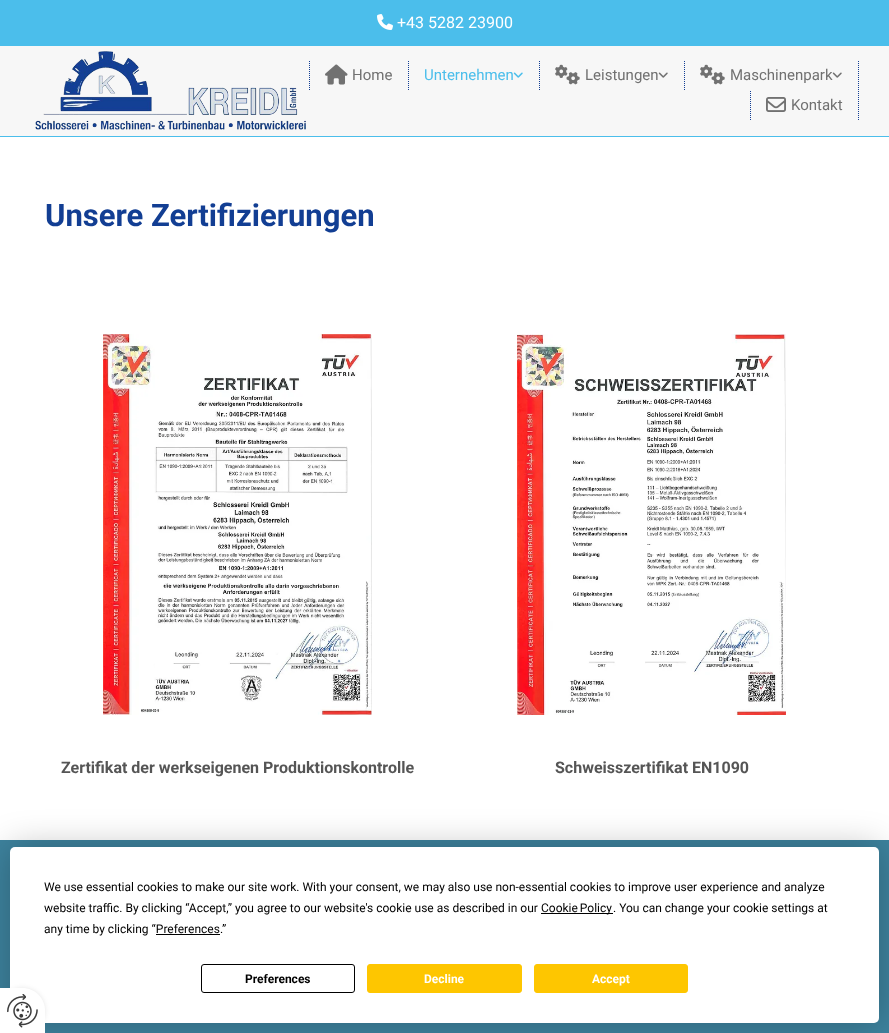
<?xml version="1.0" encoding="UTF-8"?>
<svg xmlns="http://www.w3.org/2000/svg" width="889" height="1033">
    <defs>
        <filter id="blur1" x="-50%" y="-200%" width="200%" height="500%"><feGaussianBlur stdDeviation="17.5"/></filter>
        <filter id="blur2" x="-50%" y="-200%" width="200%" height="500%"><feGaussianBlur stdDeviation="2.5"/></filter>
    </defs>
    <rect width="100%" height="100%" fill="#FFFFFF"/>
    <rect x="0" y="0" width="889" height="46" fill="#4BBEEB"/>
    <image x="377" y="14" width="16" height="16" href="img_01.png"/>
    <text x="397" y="28" font-family="Roboto" font-size="16" fill="#FFFFFF">+43 5282 23900</text>
    <rect x="0" y="46" width="889" height="90" fill="#F7F7F7"/>
    <rect x="0" y="136" width="889" height="1" fill="#4BBEEB"/>
    <image x="35" y="51" width="271" height="79" href="img_02.png"/>
    <path d="M 408.5 61 V 91" fill="none" stroke="#123E93" stroke-dasharray="1 1"/>
    <path d="M 309.5 61 V 91" fill="none" stroke="#123E93" stroke-dasharray="1 1"/>
    <image x="325" y="64" width="23" height="21" href="img_03.png"/>
    <text x="352" y="80" font-family="Roboto" font-size="15" fill="#717171">Home</text>
    <path d="M 539.5 61 V 91" fill="none" stroke="#123E93" stroke-dasharray="1 1"/>
    <text x="424" y="80" font-family="Roboto" font-size="15" fill="#4BBEEB">Unternehmen</text>
    <image x="513" y="72" width="10" height="6" href="img_04.png"/>
    <path d="M 684.5 61 V 91" fill="none" stroke="#123E93" stroke-dasharray="1 1"/>
    <image x="555" y="64" width="25" height="21" href="img_05.png"/>
    <text x="585" y="80" font-family="Roboto" font-size="15" fill="#717171">Leistungen</text>
    <image x="658" y="72" width="10" height="6" href="img_06.png"/>
    <path d="M 858.5 61 V 91" fill="none" stroke="#123E93" stroke-dasharray="1 1"/>
    <image x="700" y="64" width="25" height="21" href="img_05.png"/>
    <text x="730" y="80" font-family="Roboto" font-size="15" fill="#717171">Maschinenpark</text>
    <image x="832" y="72" width="10" height="6" href="img_07.png"/>
    <path d="M 858.5 91 V 120" fill="none" stroke="#123E93" stroke-dasharray="1 1"/>
    <path d="M 750.5 91 V 120" fill="none" stroke="#123E93" stroke-dasharray="1 1"/>
    <image x="766" y="97" width="20" height="15" href="img_08.png"/>
    <text x="791" y="110" font-family="Roboto" font-size="15" fill="#717171">Kontakt</text>
    <text x="45" y="226" font-family="Roboto" font-size="31" font-weight="700" fill="#123E93">Unsere Zertifizierungen</text>
    <image x="103" y="334" width="269" height="381" href="img_09.png"/>
    <text x="61" y="773" font-family="Roboto" font-size="16" font-weight="700" fill="#555555">Zertifikat der werkseigenen Produktionskontrolle</text>
    <image x="517" y="334" width="269" height="381" href="img_10.png"/>
    <text x="555" y="773" font-family="Roboto" font-size="16" font-weight="700" fill="#555555">Schweisszertifikat EN1090</text>
    <rect x="0" y="840" width="889" height="193" fill="#3D829D"/>
    <rect x="10" y="847" width="869" height="176" rx="5" fill="#000000" fill-opacity="0.25" filter="url(#blur1)"/>
    <rect x="10" y="847" width="869" height="176" rx="5" fill="#FFFFFF"/>
    <text font-family="Roboto" font-size="12" fill="#000000">
        <tspan x="44" y="891">We use essential cookies to make our site work. With your consent, we may also use non-essential cookies to improve user experience and analyze</tspan>
        <tspan x="44" y="912">website traffic. By clicking “Accept,” you agree to our website's cookie use as described in our</tspan>
    </text>
    <rect x="541" y="913" width="72" height="1" fill="#000000"/>
    <text x="541" y="912" word-spacing="-1" font-family="Roboto" font-size="12" fill="#000000">Cookie Policy</text>
    <text x="613" y="912" font-family="Roboto" font-size="12" fill="#000000">. You can change your cookie settings at</text>
    <text x="44" y="933" font-family="Roboto" font-size="12" fill="#000000">any time by clicking “Preferences.”</text>
    <rect x="156" y="934" width="64" height="1" fill="#000000"/>
    <rect x="201.5" y="964.5" width="153" height="28" rx="2.5" fill="none" stroke="#000000"/>
    <text x="245" y="983" font-family="Roboto" font-size="12" font-weight="700" fill="#000000">Preferences</text>
    <rect x="367.5" y="964.5" width="154" height="28" rx="2.5" fill="#FEC600" stroke="#FEC600"/>
    <text x="424" y="983" font-family="Roboto" font-size="12" font-weight="700" fill="#FFFFFF">Decline</text>
    <rect x="534.5" y="964.5" width="153" height="28" rx="2.5" fill="#FEC600" stroke="#FEC600"/>
    <text x="592" y="983" font-family="Roboto" font-size="12" font-weight="700" fill="#FFFFFF">Accept</text>
    <rect x="0" y="988" width="45" height="45" rx="22.5" fill="#000000" fill-opacity="0.1" filter="url(#blur2)"/>
    <path d="M 0 988 H 22.5 C 35 988 45 998 45 1010.5 V 1033 H 0 Z" fill="#FFFFFF"/>
    <image x="7" y="994" width="31" height="34" href="img_11.png"/>
</svg>
